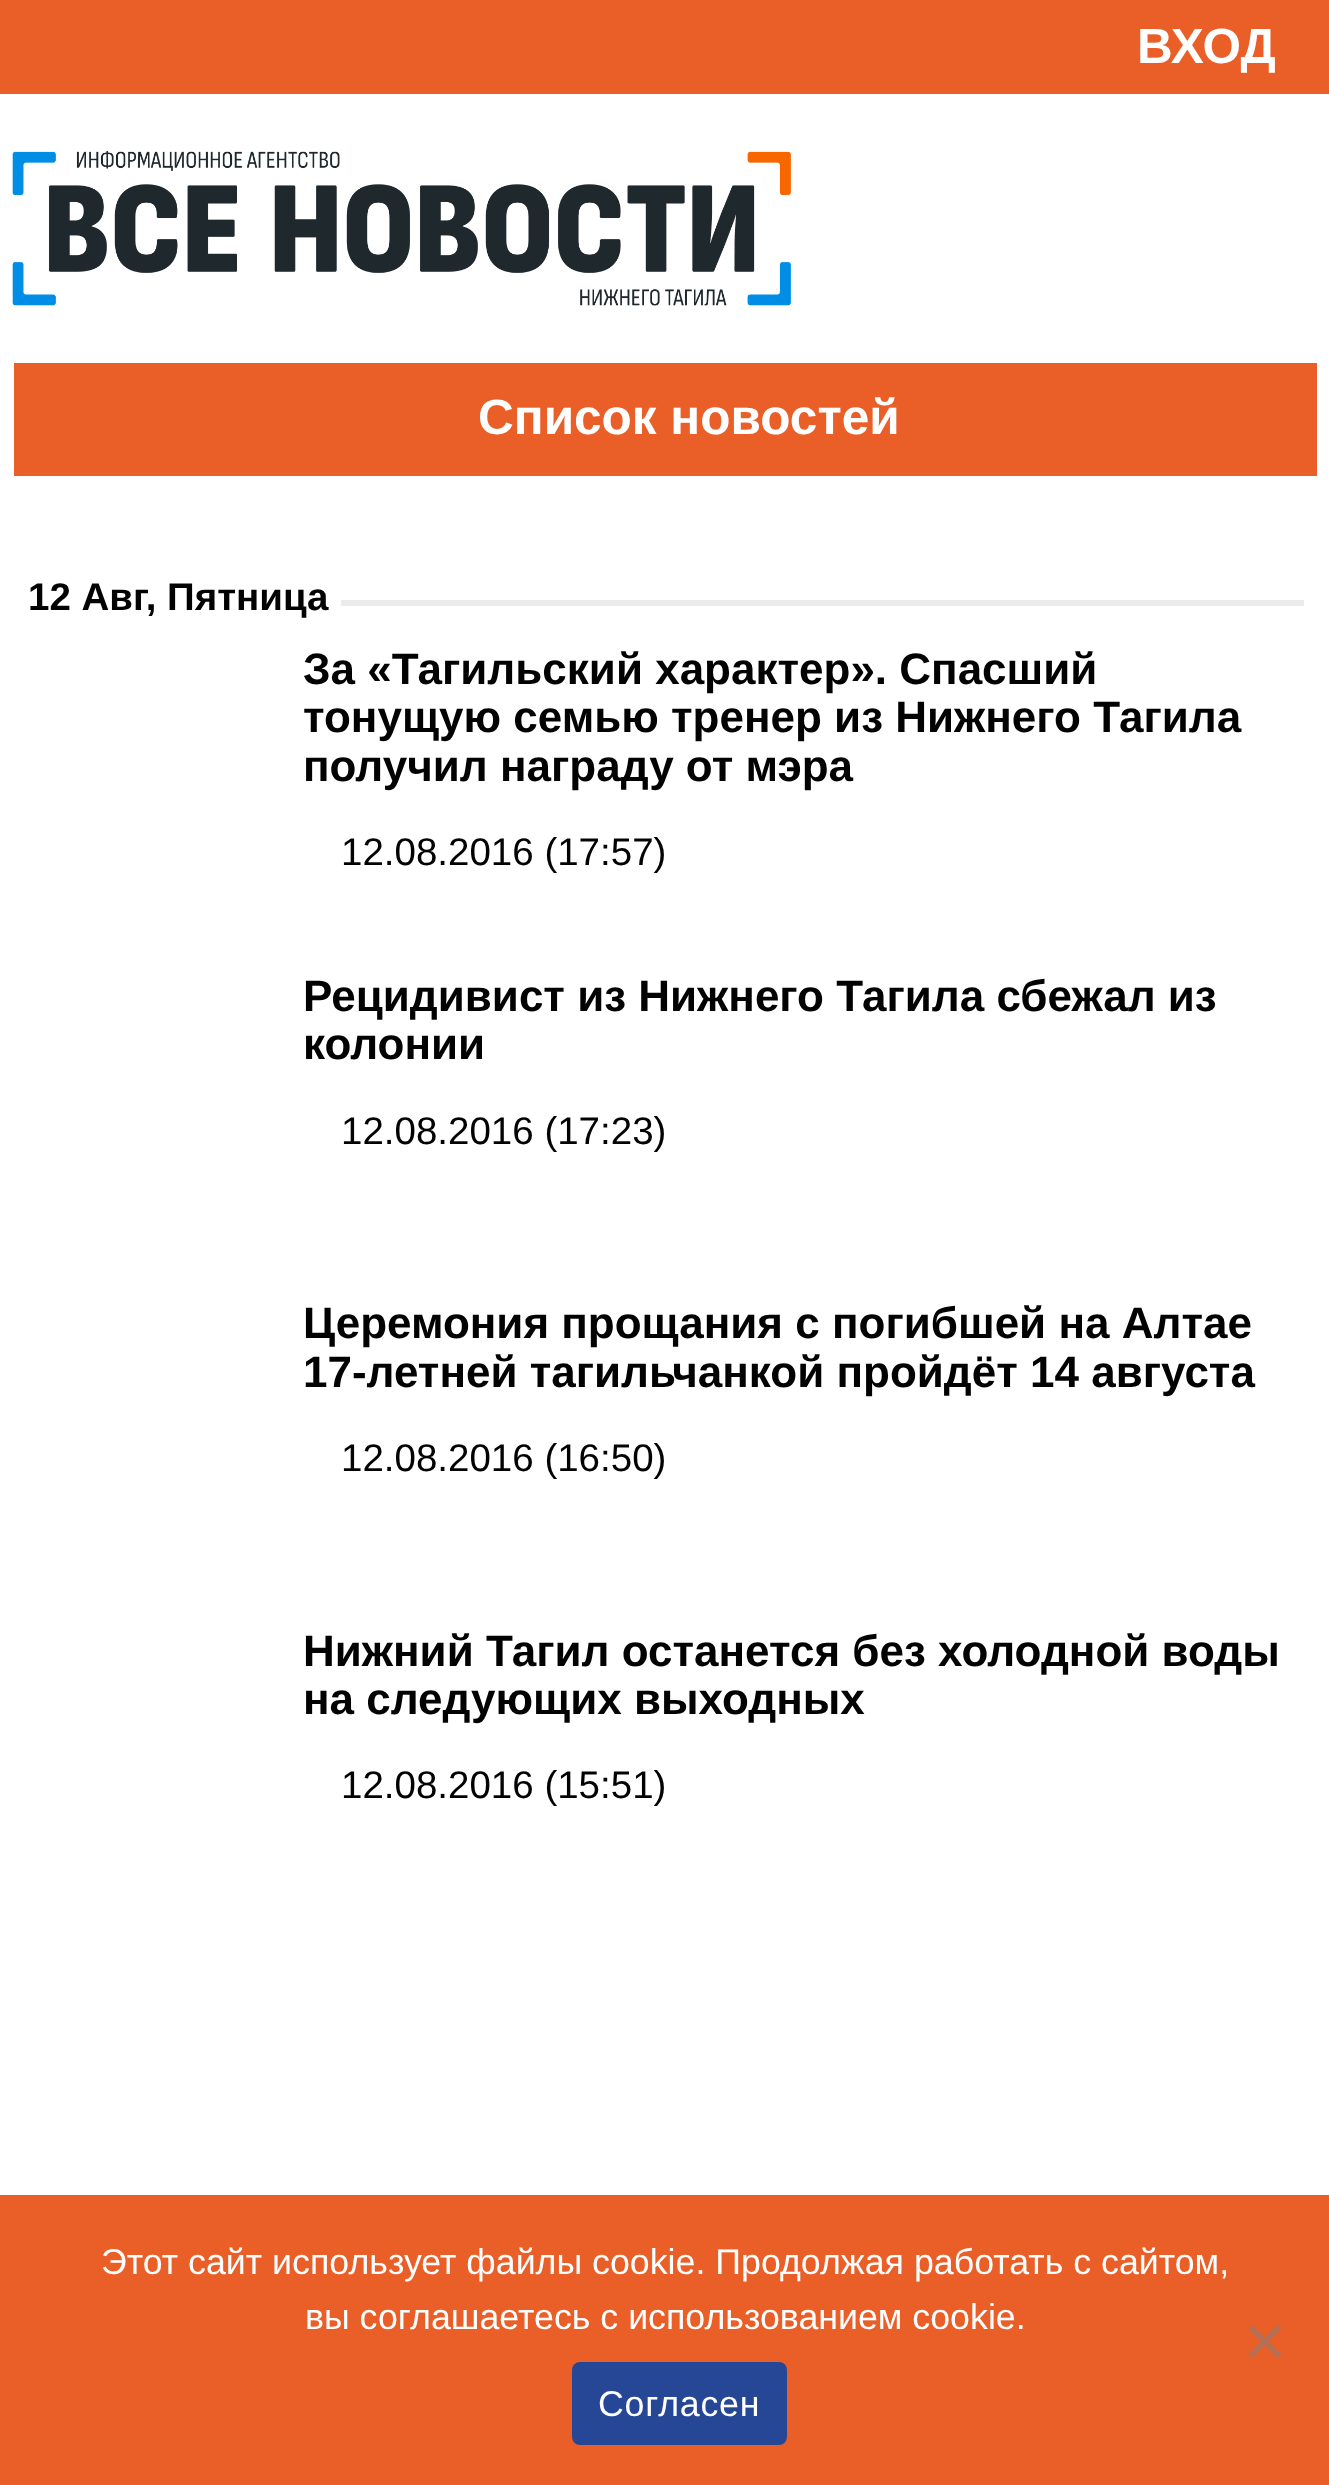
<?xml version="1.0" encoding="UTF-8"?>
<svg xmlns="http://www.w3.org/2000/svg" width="1329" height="2485">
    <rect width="100%" height="100%" fill="#FFFFFF"/>
    <rect x="0" y="0" width="1329" height="94" fill="#EA5E28"/>
    <text x="1137" y="63" font-family="Liberation Sans" font-size="49.5" font-weight="700" fill="#FFFFFF">ВХОД</text>
    <image x="12" y="150" width="779" height="156" href="img_01.png"/>
    <rect x="14" y="363" width="1303" height="113" fill="#EA5E28"/>
    <text x="478" y="434" font-family="Liberation Sans" font-size="49.5" font-weight="700" fill="#FFFFFF">Список новостей</text>
    <text x="28" y="610" font-family="Liberation Sans" font-size="38.5" font-weight="700" fill="#020202">12 Авг, Пятница</text>
    <rect x="341" y="600" width="963" height="6" fill="#EBEBEB"/>
    <text font-family="Liberation Sans" font-size="44" font-weight="700" fill="#020202">
        <tspan x="303" y="684">За «Тагильский характер». Спасший</tspan>
        <tspan x="303" y="732">тонущую семью тренер из Нижнего Тагила</tspan>
        <tspan x="303" y="781">получил награду от мэра</tspan>
    </text>
    <text x="341" y="865" font-family="Liberation Sans" font-size="38.5" fill="#020202">12.08.2016 (17:57)</text>
    <text font-family="Liberation Sans" font-size="44" font-weight="700" fill="#020202">
        <tspan x="303" y="1011">Рецидивист из Нижнего Тагила сбежал из</tspan>
        <tspan x="303" y="1059">колонии</tspan>
    </text>
    <text x="341" y="1144" font-family="Liberation Sans" font-size="38.5" fill="#020202">12.08.2016 (17:23)</text>
    <text font-family="Liberation Sans" font-size="44" font-weight="700" fill="#020202">
        <tspan x="303" y="1338">Церемония прощания с погибшей на Алтае</tspan>
        <tspan x="303" y="1387">17-летней тагильчанкой пройдёт 14 августа</tspan>
    </text>
    <text x="341" y="1471" font-family="Liberation Sans" font-size="38.5" fill="#020202">12.08.2016 (16:50)</text>
    <text font-family="Liberation Sans" font-size="44" font-weight="700" fill="#020202">
        <tspan x="303" y="1666">Нижний Тагил останется без холодной воды</tspan>
        <tspan x="303" y="1714">на следующих выходных</tspan>
    </text>
    <text x="341" y="1798" font-family="Liberation Sans" font-size="38.5" fill="#020202">12.08.2016 (15:51)</text>
    <rect x="0" y="2195" width="1329" height="290" fill="#EA5E28"/>
    <text x="101" y="2274" font-family="Liberation Sans" font-size="35.75" fill="#FFFFFF">Этот сайт использует файлы cookie. Продолжая работать с сайтом,</text>
    <text x="305" y="2329" font-family="Liberation Sans" font-size="35.75" fill="#FFFFFF">вы соглашаетесь с использованием cookie.</text>
    <path d="M 1277.5 2325 L 1281.5 2329 L 1252.5 2358 L 1248.5 2354.5 Z" fill="#B56F54"/>
    <path d="M 1248.5 2329 L 1252.5 2325 L 1281.5 2354.5 L 1277.5 2358 Z" fill="#B56F54"/>
    <rect x="572" y="2362" width="215" height="83" rx="8" fill="#264796"/>
    <text x="598" y="2416" font-family="Liberation Sans" font-size="35.75" letter-spacing="0.75" fill="#FFFFFF">Согласен</text>
</svg>
